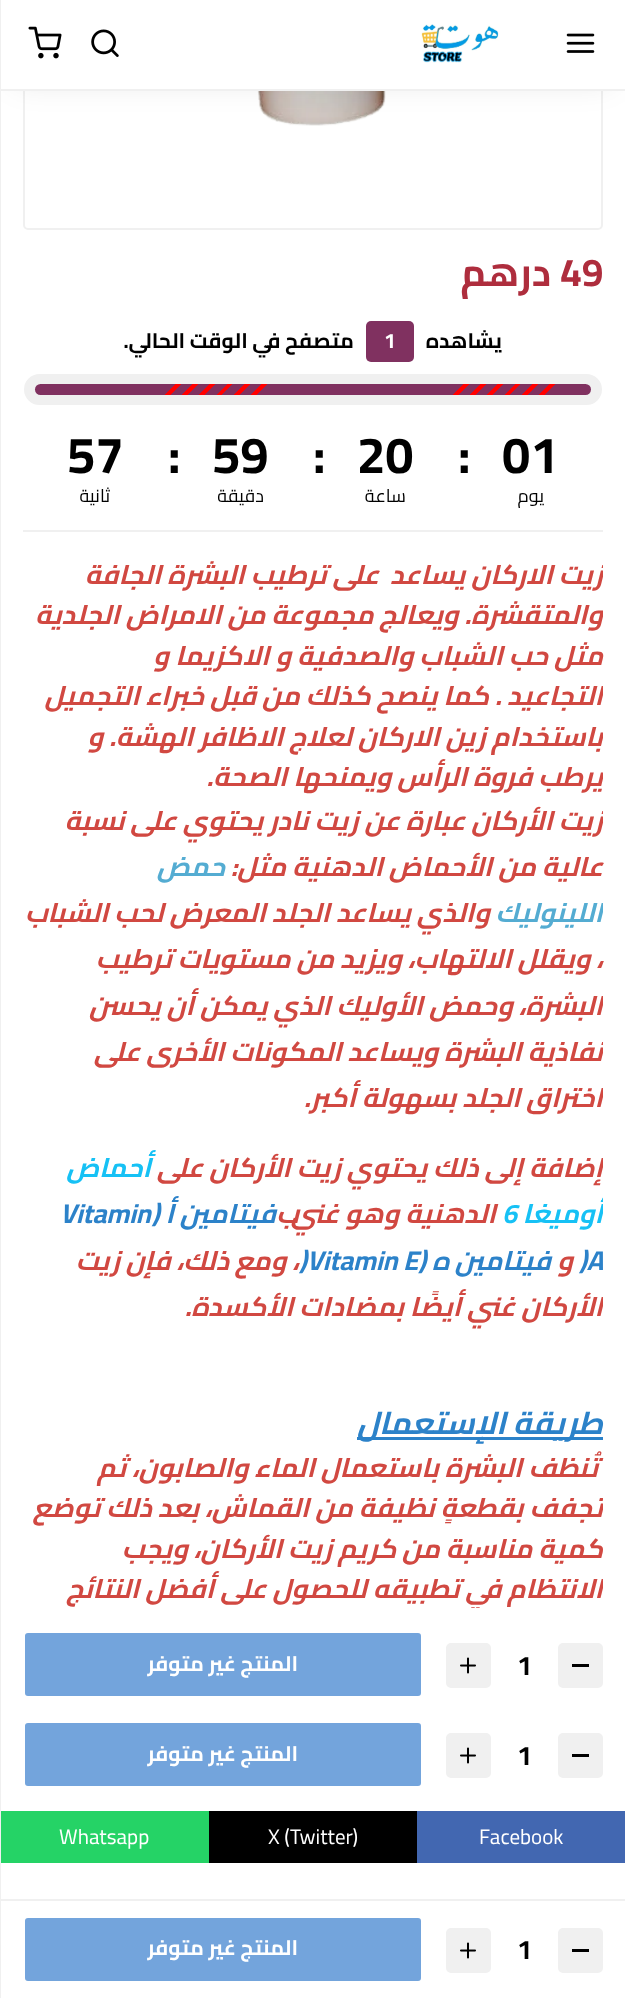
<?xml version="1.0" encoding="UTF-8"?>
<svg xmlns="http://www.w3.org/2000/svg" width="625" height="1998">
    <defs>
        <filter id="blur1" x="-50%" y="-200%" width="200%" height="500%"><feGaussianBlur stdDeviation="15"/></filter>
        <linearGradient id="g1" gradientUnits="userSpaceOnUse" x1="455" y1="531" x2="166" y2="243"><stop offset="0" stop-color="#803160"/><stop offset="0.03" stop-color="#803160"/><stop offset="0.03" stop-color="#FF0000"/><stop offset="0.03" stop-color="#FF0000"/><stop offset="0.03" stop-color="#803160"/><stop offset="0.06" stop-color="#803160"/><stop offset="0.06" stop-color="#FF0000"/><stop offset="0.06" stop-color="#FF0000"/><stop offset="0.06" stop-color="#803160"/><stop offset="0.08" stop-color="#803160"/><stop offset="0.08" stop-color="#FF0000"/><stop offset="0.09" stop-color="#FF0000"/><stop offset="0.09" stop-color="#803160"/><stop offset="0.11" stop-color="#803160"/><stop offset="0.11" stop-color="#FF0000"/><stop offset="0.12" stop-color="#FF0000"/><stop offset="0.12" stop-color="#803160"/><stop offset="0.14" stop-color="#803160"/><stop offset="0.14" stop-color="#FF0000"/><stop offset="0.15" stop-color="#FF0000"/><stop offset="0.15" stop-color="#803160"/><stop offset="0.17" stop-color="#803160"/><stop offset="0.17" stop-color="#FF0000"/><stop offset="0.18" stop-color="#FF0000"/><stop offset="0.18" stop-color="#803160"/><stop offset="0.2" stop-color="#803160"/><stop offset="0.2" stop-color="#FF0000"/><stop offset="0.21" stop-color="#FF0000"/><stop offset="0.21" stop-color="#803160"/><stop offset="0.23" stop-color="#803160"/><stop offset="0.23" stop-color="#FF0000"/><stop offset="0.24" stop-color="#FF0000"/><stop offset="0.24" stop-color="#803160"/><stop offset="0.26" stop-color="#803160"/><stop offset="0.26" stop-color="#FF0000"/><stop offset="0.26" stop-color="#FF0000"/><stop offset="0.26" stop-color="#803160"/><stop offset="0.29" stop-color="#803160"/><stop offset="0.29" stop-color="#FF0000"/><stop offset="0.29" stop-color="#FF0000"/><stop offset="0.29" stop-color="#803160"/><stop offset="0.32" stop-color="#803160"/><stop offset="0.32" stop-color="#FF0000"/><stop offset="0.32" stop-color="#FF0000"/><stop offset="0.32" stop-color="#803160"/><stop offset="0.35" stop-color="#803160"/><stop offset="0.35" stop-color="#FF0000"/><stop offset="0.35" stop-color="#FF0000"/><stop offset="0.35" stop-color="#803160"/><stop offset="0.38" stop-color="#803160"/><stop offset="0.38" stop-color="#FF0000"/><stop offset="0.38" stop-color="#FF0000"/><stop offset="0.38" stop-color="#803160"/><stop offset="0.41" stop-color="#803160"/><stop offset="0.41" stop-color="#FF0000"/><stop offset="0.41" stop-color="#FF0000"/><stop offset="0.41" stop-color="#803160"/><stop offset="0.44" stop-color="#803160"/><stop offset="0.44" stop-color="#FF0000"/><stop offset="0.44" stop-color="#FF0000"/><stop offset="0.44" stop-color="#803160"/><stop offset="0.47" stop-color="#803160"/><stop offset="0.47" stop-color="#FF0000"/><stop offset="0.47" stop-color="#FF0000"/><stop offset="0.47" stop-color="#803160"/><stop offset="0.5" stop-color="#803160"/><stop offset="0.5" stop-color="#FF0000"/><stop offset="0.5" stop-color="#FF0000"/><stop offset="0.5" stop-color="#803160"/><stop offset="0.53" stop-color="#803160"/><stop offset="0.53" stop-color="#FF0000"/><stop offset="0.53" stop-color="#FF0000"/><stop offset="0.53" stop-color="#803160"/><stop offset="0.56" stop-color="#803160"/><stop offset="0.56" stop-color="#FF0000"/><stop offset="0.56" stop-color="#FF0000"/><stop offset="0.56" stop-color="#803160"/><stop offset="0.58" stop-color="#803160"/><stop offset="0.58" stop-color="#FF0000"/><stop offset="0.59" stop-color="#FF0000"/><stop offset="0.59" stop-color="#803160"/><stop offset="0.61" stop-color="#803160"/><stop offset="0.61" stop-color="#FF0000"/><stop offset="0.62" stop-color="#FF0000"/><stop offset="0.62" stop-color="#803160"/><stop offset="0.64" stop-color="#803160"/><stop offset="0.64" stop-color="#FF0000"/><stop offset="0.65" stop-color="#FF0000"/><stop offset="0.65" stop-color="#803160"/><stop offset="0.67" stop-color="#803160"/><stop offset="0.67" stop-color="#FF0000"/><stop offset="0.68" stop-color="#FF0000"/><stop offset="0.68" stop-color="#803160"/><stop offset="0.7" stop-color="#803160"/><stop offset="0.7" stop-color="#FF0000"/><stop offset="0.71" stop-color="#FF0000"/><stop offset="0.71" stop-color="#803160"/><stop offset="0.73" stop-color="#803160"/><stop offset="0.73" stop-color="#FF0000"/><stop offset="0.74" stop-color="#FF0000"/><stop offset="0.74" stop-color="#803160"/><stop offset="0.76" stop-color="#803160"/><stop offset="0.76" stop-color="#FF0000"/><stop offset="0.76" stop-color="#FF0000"/><stop offset="0.76" stop-color="#803160"/><stop offset="0.79" stop-color="#803160"/><stop offset="0.79" stop-color="#FF0000"/><stop offset="0.79" stop-color="#FF0000"/><stop offset="0.79" stop-color="#803160"/><stop offset="0.82" stop-color="#803160"/><stop offset="0.82" stop-color="#FF0000"/><stop offset="0.82" stop-color="#FF0000"/><stop offset="0.82" stop-color="#803160"/><stop offset="0.85" stop-color="#803160"/><stop offset="0.85" stop-color="#FF0000"/><stop offset="0.85" stop-color="#FF0000"/><stop offset="0.85" stop-color="#803160"/><stop offset="0.88" stop-color="#803160"/><stop offset="0.88" stop-color="#FF0000"/><stop offset="0.88" stop-color="#FF0000"/><stop offset="0.88" stop-color="#803160"/><stop offset="0.91" stop-color="#803160"/><stop offset="0.91" stop-color="#FF0000"/><stop offset="0.91" stop-color="#FF0000"/><stop offset="0.91" stop-color="#803160"/><stop offset="0.94" stop-color="#803160"/><stop offset="0.94" stop-color="#FF0000"/><stop offset="0.94" stop-color="#FF0000"/><stop offset="0.94" stop-color="#803160"/><stop offset="0.97" stop-color="#803160"/><stop offset="0.97" stop-color="#FF0000"/><stop offset="0.97" stop-color="#FF0000"/><stop offset="0.97" stop-color="#803160"/><stop offset="1" stop-color="#803160"/><stop offset="1" stop-color="#FF0000"/><stop offset="1" stop-color="#FF0000"/></linearGradient>
        <clipPath id="clip1"><rect x="23" y="554" width="580" height="1054"/></clipPath>
    </defs>
    <rect width="100%" height="100%" fill="#FFFFFF"/>
    <rect x="24" y="-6" width="578" height="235" rx="4" fill="none" stroke="#F0F0F0" stroke-width="2"/>
    <image x="257" y="91" width="129" height="35" href="img_05.png"/>
    <rect x="15" y="23" width="596" height="60" fill="#000000" fill-opacity="0.1" filter="url(#blur1)"/>
    <rect x="1" y="0" width="624" height="89" fill="#FFFFFF"/>
    <rect x="0" y="89" width="625" height="2" fill="#F0F0F0"/>
    <image x="566" y="33" width="29" height="20" href="img_01.png"/>
    <image x="421" y="24" width="78" height="39" href="img_02.png"/>
    <image x="91" y="29" width="28" height="28" href="img_03.png"/>
    <image x="28" y="26" width="34" height="33" href="img_04.png"/>
    <text x="560" y="286" font-family="Cairo" font-size="39" font-weight="700" fill="#AE2D3D">49</text>
    <text x="551" y="286" font-family="Cairo" font-size="39" font-weight="700" direction="rtl" fill="#AE2D3D">درهم</text>
    <text x="502" y="348" font-family="Cairo" font-size="21" font-weight="700" direction="rtl" fill="#000000">يشاهده</text>
    <rect x="366" y="321" width="48" height="41" rx="5" fill="#803160"/>
    <text x="384" y="348" font-family="Cairo" font-size="21" font-weight="700" fill="#FFFFFF">1</text>
    <text x="354" y="348" font-family="Cairo" font-size="21" font-weight="700" direction="rtl" fill="#000000">متصفح في الوقت الحالي.</text>
    <rect x="29.5" y="379.5" width="567" height="20" rx="10" fill="none" stroke="#F0F0F0" stroke-width="11"/>
    <rect x="36.5" y="385.5" width="553" height="8" rx="4" fill="none" stroke="#F0F0F0" stroke-width="3"/>
    <rect x="35" y="384" width="556" height="11" rx="5.5" fill="url(#g1)"/>
    <text x="502" y="473" font-family="Cairo" font-size="51" font-weight="700" fill="#000000">01</text>
    <text x="458" y="473" font-family="Cairo" font-size="51" font-weight="700" fill="#000000">:</text>
    <text x="544" y="502" font-family="Cairo" font-size="18" direction="rtl" fill="#000000">يوم</text>
    <text x="357" y="473" font-family="Cairo" font-size="51" font-weight="700" fill="#000000">20</text>
    <text x="313" y="473" font-family="Cairo" font-size="51" font-weight="700" fill="#000000">:</text>
    <text x="406" y="502" font-family="Cairo" font-size="18" direction="rtl" fill="#000000">ساعة</text>
    <text x="212" y="473" font-family="Cairo" font-size="51" font-weight="700" fill="#000000">59</text>
    <text x="168" y="473" font-family="Cairo" font-size="51" font-weight="700" fill="#000000">:</text>
    <text x="264" y="502" font-family="Cairo" font-size="18" direction="rtl" fill="#000000">دقيقة</text>
    <text x="67" y="473" font-family="Cairo" font-size="51" font-weight="700" fill="#000000">57</text>
    <text x="110" y="502" font-family="Cairo" font-size="18" direction="rtl" fill="#000000">ثانية</text>
    <rect x="23" y="530" width="580" height="2" fill="#F0F0F0"/>
    <g clip-path="url(#clip1)">
        <text x="603" y="584" font-family="Cairo" font-size="27" font-weight="700" font-style="italic" direction="rtl" fill="#D14841">زيت الاركان</text>
    </g>
    <text x="465" y="584" font-family="Cairo" font-size="27" font-weight="700" font-style="italic" direction="rtl" fill="#D14841">يساعد</text>
    <text x="379" y="584" font-family="Cairo" font-size="27" font-weight="700" font-style="italic" direction="rtl" fill="#D14841">على ترطيب البشرة الجافة</text>
    <g clip-path="url(#clip1)">
        <text x="603" y="624" font-family="Cairo" font-size="27" font-weight="700" font-style="italic" direction="rtl" fill="#D14841">والمتقشرة. ويعالج مجموعة من الامراض الجلدية</text>
    </g>
    <text x="603" y="665" font-family="Cairo" font-size="27" font-weight="700" font-style="italic" direction="rtl" fill="#D14841">مثل حب الشباب والصدفية و الاكزيما</text>
    <text x="169" y="665" font-family="Cairo" font-size="27" font-weight="700" font-style="italic" direction="rtl" fill="#D14841">و</text>
    <g clip-path="url(#clip1)">
        <text x="603" y="705" font-family="Cairo" font-size="27" font-weight="700" font-style="italic" direction="rtl" fill="#D14841">التجاعيد</text>
    </g>
    <text x="495" y="705" font-family="Cairo" font-size="27" font-weight="700" font-style="italic" fill="#D14841">.</text>
    <text x="489" y="705" font-family="Cairo" font-size="27" font-weight="700" font-style="italic" direction="rtl" fill="#D14841">كما ينصح كذلك من قبل خبراء التجميل</text>
    <g clip-path="url(#clip1)">
        <text font-family="Cairo" font-size="27" font-weight="700" font-style="italic" direction="rtl" fill="#D14841">
            <tspan x="603" y="746">باستخدام زين الاركان لعلاج الاظافر الهشة. و</tspan>
            <tspan x="603" y="786">يرطب فروة الرأس ويمنحها الصحة.</tspan>
            <tspan x="603" y="830">زيت الأركان عبارة عن زيت نادر يحتوي على نسبة</tspan>
        </text>
    </g>
    <text x="603" y="876" font-family="Cairo" font-size="27" font-weight="700" font-style="italic" direction="rtl" fill="#D14841">عالية من الأحماض الدهنية مثل:</text>
    <text x="225" y="876" font-family="Cairo" font-size="27" font-weight="700" font-style="italic" direction="rtl" fill="#54ACD2">حمض</text>
    <g clip-path="url(#clip1)">
        <text x="603" y="922" font-family="Cairo" font-size="27" font-weight="700" font-style="italic" direction="rtl" fill="#54ACD2">اللينوليك</text>
    </g>
    <text x="490" y="922" font-family="Cairo" font-size="27" font-weight="700" font-style="italic" direction="rtl" fill="#D14841">والذي يساعد الجلد المعرض لحب الشباب</text>
    <text x="603" y="968" font-family="Cairo" font-size="27" font-weight="700" font-style="italic" direction="rtl" fill="#D14841">، ويقلل الالتهاب، ويزيد من مستويات ترطيب</text>
    <g clip-path="url(#clip1)">
        <text font-family="Cairo" font-size="27" font-weight="700" font-style="italic" direction="rtl" fill="#D14841">
            <tspan x="603" y="1015">البشرة، وحمض الأوليك الذي يمكن أن يحسن</tspan>
            <tspan x="603" y="1061">نفاذية البشرة ويساعد المكونات الأخرى على</tspan>
            <tspan x="603" y="1107">اختراق الجلد بسهولة أكبر.</tspan>
        </text>
        <text x="603" y="1177" font-family="Cairo" font-size="27" font-weight="700" font-style="italic" direction="rtl" fill="#D14841">إضافة إلى ذلك يحتوي زيت الأركان على</text>
    </g>
    <text x="151" y="1177" font-family="Cairo" font-size="27" font-weight="700" font-style="italic" direction="rtl" fill="#16C1F5">أحماض</text>
    <g clip-path="url(#clip1)">
        <text x="603" y="1223" font-family="Cairo" font-size="27" font-weight="700" font-style="italic" direction="rtl" fill="#16C1F5">أوميغا</text>
    </g>
    <text x="502" y="1223" font-family="Cairo" font-size="27" font-weight="700" font-style="italic" fill="#16C1F5">6</text>
    <text x="496" y="1223" font-family="Cairo" font-size="27" font-weight="700" font-style="italic" direction="rtl" fill="#D14841">الدهنية وهو غني</text>
    <text x="299" y="1223" font-family="Cairo" font-size="27" font-weight="700" font-style="italic" direction="rtl" fill="#D14841">ب</text>
    <text x="276" y="1223" font-family="Cairo" font-size="27" font-weight="700" font-style="italic" direction="rtl" fill="#2C82C9">فيتامين أ (</text>
    <text x="60" y="1223" font-family="Cairo" font-size="27" font-weight="700" font-style="italic" fill="#2C82C9">Vitamin</text>
    <text x="579" y="1270" font-family="Cairo" font-size="27" font-weight="700" font-style="italic" fill="#2C82C9">)A</text>
    <text x="573" y="1270" font-family="Cairo" font-size="27" font-weight="700" font-style="italic" direction="rtl" fill="#D14841">و</text>
    <text x="299" y="1270" font-family="Cairo" font-size="27" font-weight="700" font-style="italic" fill="#2C82C9">)Vitamin E</text>
    <text x="551" y="1270" font-family="Cairo" font-size="27" font-weight="700" font-style="italic" direction="rtl" fill="#2C82C9">فيتامين ه (</text>
    <text x="299" y="1270" font-family="Cairo" font-size="27" font-weight="700" font-style="italic" direction="rtl" fill="#D14841">، ومع ذلك، فإن زيت</text>
    <g clip-path="url(#clip1)">
        <text x="603" y="1316" font-family="Cairo" font-size="27" font-weight="700" font-style="italic" direction="rtl" fill="#D14841">الأركان غني أيضًا بمضادات الأكسدة.</text>
    </g>
    <rect x="357" y="1437" width="246" height="3" fill="#2C82C9"/>
    <text x="603" y="1434" font-family="Cairo" font-size="31.5" font-weight="700" font-style="italic" direction="rtl" fill="#2C82C9">طريقة الإستعمال</text>
    <text x="598" y="1477" font-family="Cairo" font-size="27" font-weight="700" font-style="italic" direction="rtl" fill="#D14841">تُنظف البشرة باستعمال الماء والصابون، ثم</text>
    <g clip-path="url(#clip1)">
        <text x="603" y="1517" font-family="Cairo" font-size="27" font-weight="700" font-style="italic" direction="rtl" fill="#D14841">تجفف بقطعةٍ نظيفة من القماش، بعد ذلك توضع</text>
    </g>
    <text x="603" y="1558" font-family="Cairo" font-size="27" font-weight="700" font-style="italic" direction="rtl" fill="#D14841">كمية مناسبة من كريم زيت الأركان، ويجب</text>
    <g clip-path="url(#clip1)">
        <text x="603" y="1598" font-family="Cairo" font-size="27" font-weight="700" font-style="italic" direction="rtl" fill="#D14841">الانتظام في تطبيقه للحصول على أفضل النتائج</text>
    </g>
    <rect x="559" y="1644" width="43" height="43" rx="4" fill="#F0F0F0" stroke="#F0F0F0" stroke-width="2"/>
    <rect x="572" y="1664" width="17" height="3" fill="#000000"/>
    <text x="517" y="1675" font-family="Cairo" font-size="27" font-weight="700" fill="#000000">1</text>
    <rect x="447" y="1644" width="43" height="43" rx="4" fill="#F0F0F0" stroke="#F0F0F0" stroke-width="2"/>
    <image x="460" y="1657" width="16" height="17" href="img_06.png"/>
    <rect x="24" y="1632" width="398" height="65" rx="4" fill="#73A4DC" stroke="#FFFFFF" stroke-width="2"/>
    <text x="298" y="1671" font-family="Cairo" font-size="21" font-weight="700" direction="rtl" fill="#FFFFFF">المنتج غير متوفر</text>
    <rect x="559" y="1734" width="43" height="43" rx="4" fill="#F0F0F0" stroke="#F0F0F0" stroke-width="2"/>
    <rect x="572" y="1754" width="17" height="3" fill="#000000"/>
    <text x="517" y="1765" font-family="Cairo" font-size="27" font-weight="700" fill="#000000">1</text>
    <rect x="447" y="1734" width="43" height="43" rx="4" fill="#F0F0F0" stroke="#F0F0F0" stroke-width="2"/>
    <image x="460" y="1747" width="16" height="17" href="img_06.png"/>
    <rect x="24" y="1722" width="398" height="65" rx="4" fill="#73A4DC" stroke="#FFFFFF" stroke-width="2"/>
    <text x="298" y="1761" font-family="Cairo" font-size="21" font-weight="700" direction="rtl" fill="#FFFFFF">المنتج غير متوفر</text>
    <rect x="417" y="1811" width="208" height="52" fill="#4267B1"/>
    <text x="479" y="1844" font-family="Cairo" font-size="21" fill="#FFFFFF">Facebook</text>
    <rect x="209" y="1811" width="208" height="52" fill="#000000"/>
    <text x="268" y="1844" font-family="Cairo" font-size="21" fill="#FFFFFF">X (Twitter)</text>
    <rect x="1" y="1811" width="208" height="52" fill="#25D366"/>
    <text x="59" y="1844" font-family="Cairo" font-size="21" fill="#FFFFFF">Whatsapp</text>
    <rect x="0" y="1899" width="625" height="2" fill="#F0F0F0"/>
    <rect x="559" y="1929" width="43" height="43" rx="4" fill="#F0F0F0" stroke="#F0F0F0" stroke-width="2"/>
    <rect x="572" y="1949" width="17" height="3" fill="#000000"/>
    <text x="517" y="1959" font-family="Cairo" font-size="27" font-weight="700" fill="#000000">1</text>
    <rect x="447" y="1929" width="43" height="43" rx="4" fill="#F0F0F0" stroke="#F0F0F0" stroke-width="2"/>
    <image x="460" y="1942" width="16" height="17" href="img_06.png"/>
    <rect x="24" y="1917" width="398" height="65" rx="4" fill="#73A4DC" stroke="#FFFFFF" stroke-width="2"/>
    <text x="298" y="1955" font-family="Cairo" font-size="21" font-weight="700" direction="rtl" fill="#FFFFFF">المنتج غير متوفر</text>
    <rect x="0" y="0" width="1" height="1998" fill="#F0F0F0"/>
</svg>
